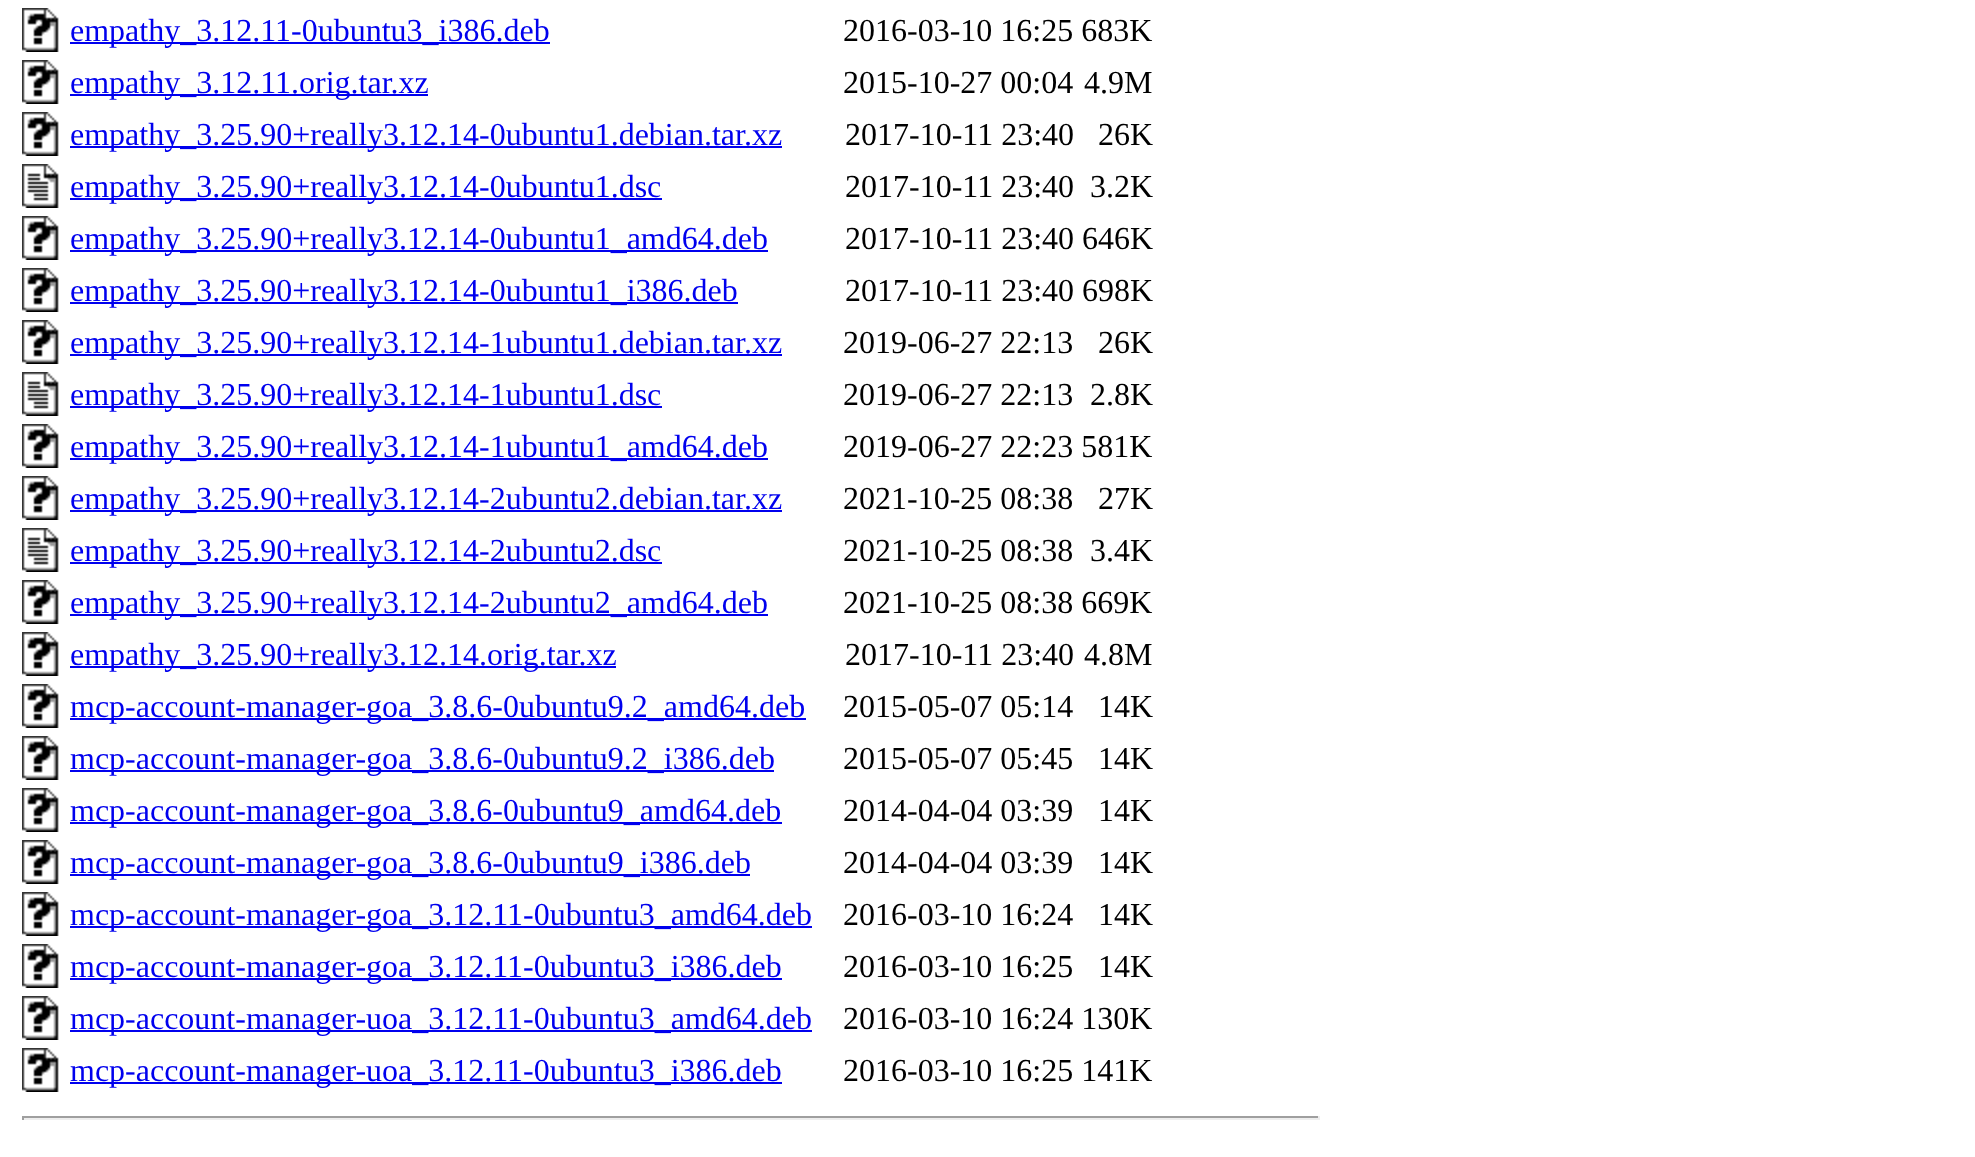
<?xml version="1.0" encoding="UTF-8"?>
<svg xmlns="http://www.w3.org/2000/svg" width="1975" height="1157">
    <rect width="100%" height="100%" fill="#FFFFFF"/>
    <image x="22" y="8" width="37" height="44" href="img_01.png"/>
    <rect x="70" y="42" width="480" height="2" fill="#0000EE"/>
    <text x="70" y="41" font-family="Liberation Serif" font-size="32" fill="#0000EE">empathy_3.12.11-0ubuntu3_i386.deb</text>
    <text x="843" y="41" font-family="Liberation Serif" font-size="32" fill="#000000">2016-03-10 16:25 683K</text>
    <image x="22" y="60" width="37" height="44" href="img_01.png"/>
    <rect x="70" y="94" width="358" height="2" fill="#0000EE"/>
    <text x="70" y="93" font-family="Liberation Serif" font-size="32" fill="#0000EE">empathy_3.12.11.orig.tar.xz</text>
    <text x="843" y="93" font-family="Liberation Serif" font-size="32" fill="#000000">2015-10-27 00:04</text>
    <text x="1084" y="93" font-family="Liberation Serif" font-size="32" fill="#000000">4.9M</text>
    <image x="22" y="112" width="37" height="44" href="img_01.png"/>
    <rect x="70" y="146" width="712" height="2" fill="#0000EE"/>
    <text x="70" y="145" font-family="Liberation Serif" font-size="32" fill="#0000EE">empathy_3.25.90+really3.12.14-0ubuntu1.debian.tar.xz</text>
    <text x="845" y="145" font-family="Liberation Serif" font-size="32" fill="#000000">2017-10-11 23:40</text>
    <text x="1098" y="145" font-family="Liberation Serif" font-size="32" fill="#000000">26K</text>
    <image x="22" y="164" width="37" height="44" href="img_02.png"/>
    <rect x="70" y="198" width="592" height="2" fill="#0000EE"/>
    <text x="70" y="197" font-family="Liberation Serif" font-size="32" fill="#0000EE">empathy_3.25.90+really3.12.14-0ubuntu1.dsc</text>
    <text x="845" y="197" font-family="Liberation Serif" font-size="32" fill="#000000">2017-10-11 23:40</text>
    <text x="1090" y="197" font-family="Liberation Serif" font-size="32" fill="#000000">3.2K</text>
    <image x="22" y="216" width="37" height="44" href="img_01.png"/>
    <rect x="70" y="250" width="698" height="2" fill="#0000EE"/>
    <text x="70" y="249" font-family="Liberation Serif" font-size="32" fill="#0000EE">empathy_3.25.90+really3.12.14-0ubuntu1_amd64.deb</text>
    <text x="845" y="249" font-family="Liberation Serif" font-size="32" fill="#000000">2017-10-11 23:40 646K</text>
    <image x="22" y="268" width="37" height="44" href="img_01.png"/>
    <rect x="70" y="302" width="668" height="2" fill="#0000EE"/>
    <text x="70" y="301" font-family="Liberation Serif" font-size="32" fill="#0000EE">empathy_3.25.90+really3.12.14-0ubuntu1_i386.deb</text>
    <text x="845" y="301" font-family="Liberation Serif" font-size="32" fill="#000000">2017-10-11 23:40 698K</text>
    <image x="22" y="320" width="37" height="44" href="img_01.png"/>
    <rect x="70" y="354" width="712" height="2" fill="#0000EE"/>
    <text x="70" y="353" font-family="Liberation Serif" font-size="32" fill="#0000EE">empathy_3.25.90+really3.12.14-1ubuntu1.debian.tar.xz</text>
    <text x="843" y="353" font-family="Liberation Serif" font-size="32" fill="#000000">2019-06-27 22:13</text>
    <text x="1098" y="353" font-family="Liberation Serif" font-size="32" fill="#000000">26K</text>
    <image x="22" y="372" width="37" height="44" href="img_02.png"/>
    <rect x="70" y="406" width="592" height="2" fill="#0000EE"/>
    <text x="70" y="405" font-family="Liberation Serif" font-size="32" fill="#0000EE">empathy_3.25.90+really3.12.14-1ubuntu1.dsc</text>
    <text x="843" y="405" font-family="Liberation Serif" font-size="32" fill="#000000">2019-06-27 22:13</text>
    <text x="1090" y="405" font-family="Liberation Serif" font-size="32" fill="#000000">2.8K</text>
    <image x="22" y="424" width="37" height="44" href="img_01.png"/>
    <rect x="70" y="458" width="698" height="2" fill="#0000EE"/>
    <text x="70" y="457" font-family="Liberation Serif" font-size="32" fill="#0000EE">empathy_3.25.90+really3.12.14-1ubuntu1_amd64.deb</text>
    <text x="843" y="457" font-family="Liberation Serif" font-size="32" fill="#000000">2019-06-27 22:23 581K</text>
    <image x="22" y="476" width="37" height="44" href="img_01.png"/>
    <rect x="70" y="510" width="712" height="2" fill="#0000EE"/>
    <text x="70" y="509" font-family="Liberation Serif" font-size="32" fill="#0000EE">empathy_3.25.90+really3.12.14-2ubuntu2.debian.tar.xz</text>
    <text x="843" y="509" font-family="Liberation Serif" font-size="32" fill="#000000">2021-10-25 08:38</text>
    <text x="1098" y="509" font-family="Liberation Serif" font-size="32" fill="#000000">27K</text>
    <image x="22" y="528" width="37" height="44" href="img_02.png"/>
    <rect x="70" y="562" width="592" height="2" fill="#0000EE"/>
    <text x="70" y="561" font-family="Liberation Serif" font-size="32" fill="#0000EE">empathy_3.25.90+really3.12.14-2ubuntu2.dsc</text>
    <text x="843" y="561" font-family="Liberation Serif" font-size="32" fill="#000000">2021-10-25 08:38</text>
    <text x="1090" y="561" font-family="Liberation Serif" font-size="32" fill="#000000">3.4K</text>
    <image x="22" y="580" width="37" height="44" href="img_01.png"/>
    <rect x="70" y="614" width="698" height="2" fill="#0000EE"/>
    <text x="70" y="613" font-family="Liberation Serif" font-size="32" fill="#0000EE">empathy_3.25.90+really3.12.14-2ubuntu2_amd64.deb</text>
    <text x="843" y="613" font-family="Liberation Serif" font-size="32" fill="#000000">2021-10-25 08:38 669K</text>
    <image x="22" y="632" width="37" height="44" href="img_01.png"/>
    <rect x="70" y="666" width="546" height="2" fill="#0000EE"/>
    <text x="70" y="665" font-family="Liberation Serif" font-size="32" fill="#0000EE">empathy_3.25.90+really3.12.14.orig.tar.xz</text>
    <text x="845" y="665" font-family="Liberation Serif" font-size="32" fill="#000000">2017-10-11 23:40</text>
    <text x="1084" y="665" font-family="Liberation Serif" font-size="32" fill="#000000">4.8M</text>
    <image x="22" y="684" width="37" height="44" href="img_01.png"/>
    <rect x="70" y="718" width="736" height="2" fill="#0000EE"/>
    <text x="70" y="717" font-family="Liberation Serif" font-size="32" fill="#0000EE">mcp-account-manager-goa_3.8.6-0ubuntu9.2_amd64.deb</text>
    <text x="843" y="717" font-family="Liberation Serif" font-size="32" fill="#000000">2015-05-07 05:14</text>
    <text x="1098" y="717" font-family="Liberation Serif" font-size="32" fill="#000000">14K</text>
    <image x="22" y="736" width="37" height="44" href="img_01.png"/>
    <rect x="70" y="770" width="704" height="2" fill="#0000EE"/>
    <text x="70" y="769" font-family="Liberation Serif" font-size="32" fill="#0000EE">mcp-account-manager-goa_3.8.6-0ubuntu9.2_i386.deb</text>
    <text x="843" y="769" font-family="Liberation Serif" font-size="32" fill="#000000">2015-05-07 05:45</text>
    <text x="1098" y="769" font-family="Liberation Serif" font-size="32" fill="#000000">14K</text>
    <image x="22" y="788" width="37" height="44" href="img_01.png"/>
    <rect x="70" y="822" width="712" height="2" fill="#0000EE"/>
    <text x="70" y="821" font-family="Liberation Serif" font-size="32" fill="#0000EE">mcp-account-manager-goa_3.8.6-0ubuntu9_amd64.deb</text>
    <text x="843" y="821" font-family="Liberation Serif" font-size="32" fill="#000000">2014-04-04 03:39</text>
    <text x="1098" y="821" font-family="Liberation Serif" font-size="32" fill="#000000">14K</text>
    <image x="22" y="840" width="37" height="44" href="img_01.png"/>
    <rect x="70" y="874" width="680" height="2" fill="#0000EE"/>
    <text x="70" y="873" font-family="Liberation Serif" font-size="32" fill="#0000EE">mcp-account-manager-goa_3.8.6-0ubuntu9_i386.deb</text>
    <text x="843" y="873" font-family="Liberation Serif" font-size="32" fill="#000000">2014-04-04 03:39</text>
    <text x="1098" y="873" font-family="Liberation Serif" font-size="32" fill="#000000">14K</text>
    <image x="22" y="892" width="37" height="44" href="img_01.png"/>
    <rect x="70" y="926" width="742" height="2" fill="#0000EE"/>
    <text x="70" y="925" font-family="Liberation Serif" font-size="32" fill="#0000EE">mcp-account-manager-goa_3.12.11-0ubuntu3_amd64.deb</text>
    <text x="843" y="925" font-family="Liberation Serif" font-size="32" fill="#000000">2016-03-10 16:24</text>
    <text x="1098" y="925" font-family="Liberation Serif" font-size="32" fill="#000000">14K</text>
    <image x="22" y="944" width="37" height="44" href="img_01.png"/>
    <rect x="70" y="978" width="712" height="2" fill="#0000EE"/>
    <text x="70" y="977" font-family="Liberation Serif" font-size="32" fill="#0000EE">mcp-account-manager-goa_3.12.11-0ubuntu3_i386.deb</text>
    <text x="843" y="977" font-family="Liberation Serif" font-size="32" fill="#000000">2016-03-10 16:25</text>
    <text x="1098" y="977" font-family="Liberation Serif" font-size="32" fill="#000000">14K</text>
    <image x="22" y="996" width="37" height="44" href="img_01.png"/>
    <rect x="70" y="1030" width="742" height="2" fill="#0000EE"/>
    <text x="70" y="1029" font-family="Liberation Serif" font-size="32" fill="#0000EE">mcp-account-manager-uoa_3.12.11-0ubuntu3_amd64.deb</text>
    <text x="843" y="1029" font-family="Liberation Serif" font-size="32" fill="#000000">2016-03-10 16:24 130K</text>
    <image x="22" y="1048" width="37" height="44" href="img_01.png"/>
    <rect x="70" y="1082" width="712" height="2" fill="#0000EE"/>
    <text x="70" y="1081" font-family="Liberation Serif" font-size="32" fill="#0000EE">mcp-account-manager-uoa_3.12.11-0ubuntu3_i386.deb</text>
    <text x="843" y="1081" font-family="Liberation Serif" font-size="32" fill="#000000">2016-03-10 16:25 141K</text>
    <rect x="22" y="1116" width="1298" height="2" fill="#9F9F9F"/>
    <rect x="1318" y="1116" width="2" height="4" fill="#EEEEEE"/>
    <rect x="22" y="1118" width="1298" height="2" fill="#EEEEEE"/>
    <rect x="22" y="1116" width="2" height="4" fill="#9F9F9F"/>
</svg>
